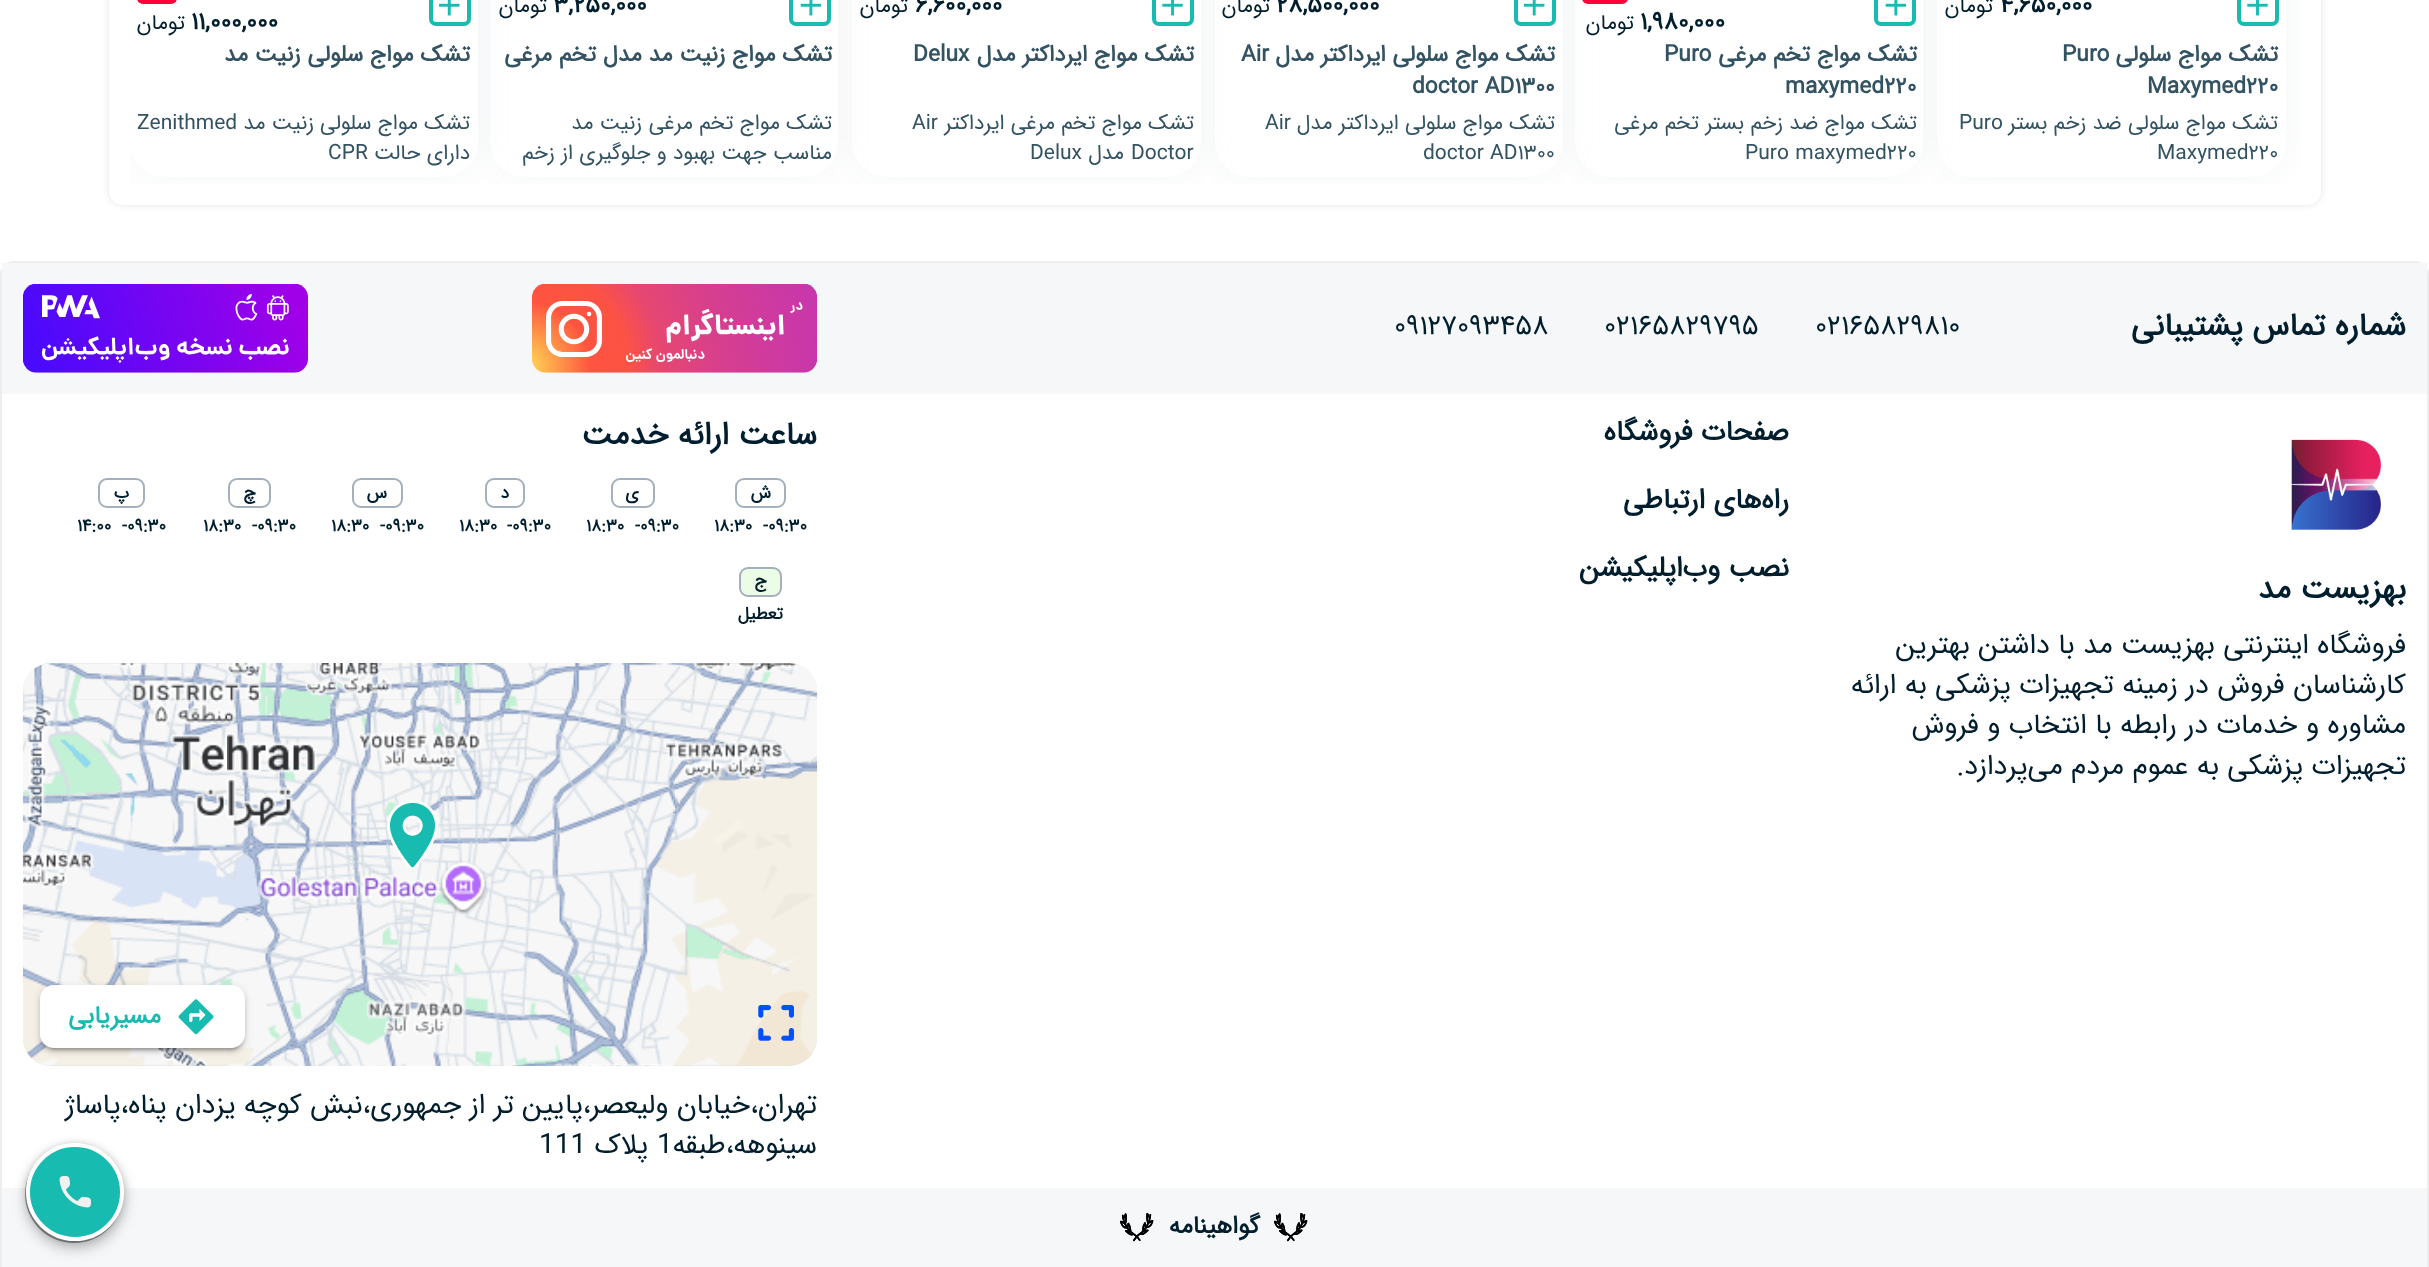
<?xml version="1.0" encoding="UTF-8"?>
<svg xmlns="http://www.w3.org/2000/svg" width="2429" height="1267">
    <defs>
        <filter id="blur1" x="-50%" y="-200%" width="200%" height="500%"><feGaussianBlur stdDeviation="3.5"/></filter>
        <clipPath id="clip1"><rect x="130" y="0" width="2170" height="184"/></clipPath>
        <filter id="blur2" x="-50%" y="-200%" width="200%" height="500%"><feGaussianBlur stdDeviation="17.5"/></filter>
        <filter id="blur3" x="-50%" y="-200%" width="200%" height="500%"><feGaussianBlur stdDeviation="4.5"/></filter>
        <filter id="blur4" x="-50%" y="-200%" width="200%" height="500%"><feGaussianBlur stdDeviation="2"/></filter>
        <filter id="blur5" x="-50%" y="-200%" width="200%" height="500%"><feGaussianBlur stdDeviation="1"/></filter>
        <filter id="blur6" x="-50%" y="-200%" width="200%" height="500%"><feGaussianBlur stdDeviation="7"/></filter>
    </defs>
    <rect width="100%" height="100%" fill="#FFFFFF"/>
    <rect x="109" y="-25" width="2212" height="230" rx="14" fill="#000000" fill-opacity="0.1" filter="url(#blur1)"/>
    <rect x="109" y="-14" width="2212" height="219" rx="14" fill="#FFFFFF"/>
    <g clip-path="url(#clip1)">
        <rect x="1937" y="-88" width="349" height="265" rx="35" fill="#CCD4D7" fill-opacity="0.2" filter="url(#blur2)"/>
    </g>
    <rect x="1937" y="-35" width="349" height="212" rx="35" fill="#FFFFFF"/>
    <rect x="2239" y="-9" width="38" height="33" rx="5" fill="none" stroke="#17BBB0" stroke-width="4"/>
    <image x="2247" y="0" width="21" height="16" href="img_01.png"/>
    <text x="2000" y="12" font-family="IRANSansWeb" font-size="24.5" font-weight="700" fill="#001E2D">۴,۶۵۰,۰۰۰</text>
    <text x="1993" y="12" font-family="IRANSansWeb" font-size="21" direction="rtl" fill="#001E2D">تومان</text>
    <text x="2278" y="61" font-family="IRANSansWeb" font-size="22.75" font-weight="700" direction="rtl" fill="#335363">تشک مواج سلولی</text>
    <text x="2062" y="61" font-family="IRANSansWeb" font-size="22.75" font-weight="700" fill="#335363">Puro</text>
    <text x="2147" y="93" font-family="IRANSansWeb" font-size="22.75" font-weight="700" fill="#335363">Maxymed۲۲۰</text>
    <text x="2278" y="129" font-family="IRANSansWeb" font-size="21" direction="rtl" fill="#335363">تشک مواج سلولی ضد زخم بستر</text>
    <text x="1959" y="129" font-family="IRANSansWeb" font-size="21" fill="#335363">Puro</text>
    <text x="2157" y="159" font-family="IRANSansWeb" font-size="21" fill="#335363">Maxymed۲۲۰</text>
    <g clip-path="url(#clip1)">
        <rect x="1575" y="-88" width="348" height="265" rx="35" fill="#CCD4D7" fill-opacity="0.2" filter="url(#blur2)"/>
    </g>
    <rect x="1575" y="-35" width="348" height="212" rx="35" fill="#FFFFFF"/>
    <rect x="1876" y="-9" width="38" height="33" rx="5" fill="none" stroke="#17BBB0" stroke-width="4"/>
    <image x="1885" y="0" width="22" height="16" href="img_02.png"/>
    <rect x="1582" y="-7" width="46" height="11" rx="7" fill="#FF0038"/>
    <text x="1640" y="29" font-family="IRANSansWeb" font-size="24.5" font-weight="700" fill="#001E2D">۱,۹۸۰,۰۰۰</text>
    <text x="1634" y="29" font-family="IRANSansWeb" font-size="21" direction="rtl" fill="#001E2D">تومان</text>
    <text x="1917" y="61" font-family="IRANSansWeb" font-size="22.75" font-weight="700" direction="rtl" fill="#335363">تشک مواج تخم مرغی</text>
    <text x="1664" y="61" font-family="IRANSansWeb" font-size="22.75" font-weight="700" fill="#335363">Puro</text>
    <text x="1785" y="93" font-family="IRANSansWeb" font-size="22.75" font-weight="700" fill="#335363">maxymed۲۲۰</text>
    <text x="1917" y="129" font-family="IRANSansWeb" font-size="21" direction="rtl" fill="#335363">تشک مواج ضد زخم بستر تخم مرغی</text>
    <text x="1745" y="159" font-family="IRANSansWeb" font-size="21" fill="#335363">Puro maxymed۲۲۰</text>
    <g clip-path="url(#clip1)">
        <rect x="1215" y="-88" width="348" height="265" rx="35" fill="#CCD4D7" fill-opacity="0.2" filter="url(#blur2)"/>
    </g>
    <rect x="1215" y="-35" width="348" height="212" rx="35" fill="#FFFFFF"/>
    <rect x="1516" y="-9" width="38" height="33" rx="5" fill="none" stroke="#17BBB0" stroke-width="4"/>
    <image x="1524" y="0" width="21" height="16" href="img_03.png"/>
    <text x="1276" y="12" font-family="IRANSansWeb" font-size="24.5" font-weight="700" fill="#001E2D">۲۸,۵۰۰,۰۰۰</text>
    <text x="1270" y="12" font-family="IRANSansWeb" font-size="21" direction="rtl" fill="#001E2D">تومان</text>
    <text x="1555" y="61" font-family="IRANSansWeb" font-size="22.75" font-weight="700" direction="rtl" fill="#335363">تشک مواج سلولی ایرداکتر مدل</text>
    <text x="1241" y="61" font-family="IRANSansWeb" font-size="22.75" font-weight="700" fill="#335363">Air</text>
    <text x="1412" y="93" font-family="IRANSansWeb" font-size="22.75" font-weight="700" fill="#335363">doctor AD۱۳۰۰</text>
    <text x="1555" y="129" font-family="IRANSansWeb" font-size="21" direction="rtl" fill="#335363">تشک مواج سلولی ایرداکتر مدل</text>
    <text x="1265" y="129" font-family="IRANSansWeb" font-size="21" fill="#335363">Air</text>
    <text x="1423" y="159" font-family="IRANSansWeb" font-size="21" fill="#335363">doctor AD۱۳۰۰</text>
    <g clip-path="url(#clip1)">
        <rect x="852" y="-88" width="349" height="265" rx="35" fill="#CCD4D7" fill-opacity="0.2" filter="url(#blur2)"/>
    </g>
    <rect x="852" y="-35" width="349" height="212" rx="35" fill="#FFFFFF"/>
    <rect x="1154" y="-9" width="38" height="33" rx="5" fill="none" stroke="#17BBB0" stroke-width="4"/>
    <image x="1162" y="0" width="21" height="16" href="img_04.png"/>
    <text x="915" y="12" font-family="IRANSansWeb" font-size="24.5" font-weight="700" fill="#001E2D">۶,۶۰۰,۰۰۰</text>
    <text x="908" y="12" font-family="IRANSansWeb" font-size="21" direction="rtl" fill="#001E2D">تومان</text>
    <text x="1194" y="61" font-family="IRANSansWeb" font-size="22.75" font-weight="700" direction="rtl" fill="#335363">تشک مواج ایرداکتر مدل</text>
    <text x="913" y="61" font-family="IRANSansWeb" font-size="22.75" font-weight="700" fill="#335363">Delux</text>
    <text x="1194" y="129" font-family="IRANSansWeb" font-size="21" direction="rtl" fill="#335363">تشک مواج تخم مرغی ایرداکتر</text>
    <text x="912" y="129" font-family="IRANSansWeb" font-size="21" fill="#335363">Air</text>
    <text x="1131" y="159" font-family="IRANSansWeb" font-size="21" fill="#335363">Doctor</text>
    <text x="1124" y="159" font-family="IRANSansWeb" font-size="21" direction="rtl" fill="#335363">مدل</text>
    <text x="1030" y="159" font-family="IRANSansWeb" font-size="21" fill="#335363">Delux</text>
    <g clip-path="url(#clip1)">
        <rect x="490" y="-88" width="348" height="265" rx="35" fill="#CCD4D7" fill-opacity="0.2" filter="url(#blur2)"/>
    </g>
    <rect x="490" y="-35" width="348" height="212" rx="35" fill="#FFFFFF"/>
    <rect x="791" y="-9" width="38" height="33" rx="5" fill="none" stroke="#17BBB0" stroke-width="4"/>
    <image x="800" y="0" width="22" height="16" href="img_05.png"/>
    <text x="553" y="12" font-family="IRANSansWeb" font-size="24.5" font-weight="700" fill="#001E2D">۳,۲۵۰,۰۰۰</text>
    <text x="547" y="12" font-family="IRANSansWeb" font-size="21" direction="rtl" fill="#001E2D">تومان</text>
    <text x="832" y="61" font-family="IRANSansWeb" font-size="22.75" font-weight="700" direction="rtl" fill="#335363">تشک مواج زنیت مد مدل تخم مرغی</text>
    <text x="832" y="129" font-family="IRANSansWeb" font-size="21" direction="rtl" fill="#335363">تشک مواج تخم مرغی</text>
    <text x="642" y="129" font-family="IRANSansWeb" font-size="21" direction="rtl" fill="#335363">زنیت مد</text>
    <text x="832" y="159" font-family="IRANSansWeb" font-size="21" direction="rtl" fill="#335363">مناسب جهت بهبود و جلوگیری از زخم</text>
    <g clip-path="url(#clip1)">
        <rect x="130" y="-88" width="348" height="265" rx="35" fill="#CCD4D7" fill-opacity="0.2" filter="url(#blur2)"/>
    </g>
    <rect x="130" y="-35" width="348" height="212" rx="35" fill="#FFFFFF"/>
    <rect x="431" y="-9" width="38" height="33" rx="5" fill="none" stroke="#17BBB0" stroke-width="4"/>
    <image x="439" y="0" width="21" height="16" href="img_06.png"/>
    <rect x="137" y="-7" width="40" height="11" rx="7" fill="#FF0038"/>
    <text x="191" y="29" font-family="IRANSansWeb" font-size="24.5" font-weight="700" fill="#001E2D">۱۱,۰۰۰,۰۰۰</text>
    <text x="185" y="29" font-family="IRANSansWeb" font-size="21" direction="rtl" fill="#001E2D">تومان</text>
    <text x="470" y="61" font-family="IRANSansWeb" font-size="22.75" font-weight="700" direction="rtl" fill="#335363">تشک مواج سلولی زنیت مد</text>
    <text x="470" y="129" font-family="IRANSansWeb" font-size="21" direction="rtl" fill="#335363">تشک مواج سلولی</text>
    <text x="314" y="129" font-family="IRANSansWeb" font-size="21" direction="rtl" fill="#335363">زنیت مد</text>
    <text x="137" y="129" font-family="IRANSansWeb" font-size="21" fill="#335363">Zenithmed</text>
    <text x="470" y="159" font-family="IRANSansWeb" font-size="21" direction="rtl" fill="#335363">دارای حالت</text>
    <text x="328" y="159" font-family="IRANSansWeb" font-size="21" fill="#335363">CPR</text>
    <rect x="1" y="262" width="2427" height="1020" rx="13" fill="none" stroke="#EDEDED" stroke-width="2"/>
    <rect x="2" y="263" width="2425" height="131" fill="#F5F7F8"/>
    <text x="2406" y="335" font-family="IRANSansWeb" font-size="31.5" font-weight="700" direction="rtl" fill="#001E2D">شماره تماس پشتیبانی</text>
    <text x="1815" y="334" font-family="IRANSansWeb" font-size="28" fill="#001E2D">۰۲۱۶۵۸۲۹۸۱۰</text>
    <text x="1604" y="334" font-family="IRANSansWeb" font-size="28" fill="#001E2D">۰۲۱۶۵۸۲۹۷۹۵</text>
    <text x="1394" y="334" font-family="IRANSansWeb" font-size="28" fill="#001E2D">۰۹۱۲۷۰۹۳۴۵۸</text>
    <image x="532" y="284" width="285" height="89" href="img_07.png"/>
    <image x="23" y="284" width="285" height="89" href="img_08.png"/>
    <image x="2291" y="439" width="90" height="91" href="img_09.png"/>
    <text x="2406" y="598" font-family="IRANSansWeb" font-size="31.5" font-weight="700" direction="rtl" fill="#001E2D">بهزیست مد</text>
    <text font-family="IRANSansWeb" font-size="28" direction="rtl" fill="#001E2D">
        <tspan x="2406" y="653">فروشگاه اینترنتی بهزیست مد با داشتن بهترین</tspan>
        <tspan x="2406" y="693">کارشناسان فروش در زمینه تجهیزات پزشکی به ارائه</tspan>
        <tspan x="2406" y="733">مشاوره و خدمات در رابطه با انتخاب و فروش</tspan>
        <tspan x="2406" y="774">تجهیزات پزشکی به عموم مردم می‌پردازد.</tspan>
    </text>
    <text x="1789" y="440" font-family="IRANSansWeb" font-size="28" font-weight="700" direction="rtl" fill="#001E2D">صفحات فروشگاه</text>
    <text x="1789" y="508" font-family="IRANSansWeb" font-size="28" font-weight="700" direction="rtl" fill="#001E2D">راه‌های ارتباطی</text>
    <text x="1789" y="576" font-family="IRANSansWeb" font-size="28" font-weight="700" direction="rtl" fill="#001E2D">نصب وب‌اپلیکیشن</text>
    <text x="817" y="444" font-family="IRANSansWeb" font-size="31.5" font-weight="700" direction="rtl" fill="#001E2D">ساعت ارائه خدمت</text>
    <rect x="736" y="479" width="49" height="28" rx="8" fill="none" stroke="#A4B0BE" stroke-width="2"/>
    <text x="771" y="498" font-family="IRANSansWeb" font-size="17.5" font-weight="700" direction="rtl" fill="#001E2D">ش</text>
    <text x="768" y="531" font-family="IRANSansWeb" font-size="17.5" font-weight="700" fill="#001E2D">۰۹:۳۰</text>
    <text x="763" y="531" font-family="IRANSansWeb" font-size="17.5" font-weight="700" fill="#001E2D">-</text>
    <text x="714" y="531" font-family="IRANSansWeb" font-size="17.5" font-weight="700" fill="#001E2D">۱۸:۳۰</text>
    <rect x="612" y="479" width="42" height="28" rx="8" fill="none" stroke="#A4B0BE" stroke-width="2"/>
    <text x="639" y="498" font-family="IRANSansWeb" font-size="17.5" font-weight="700" direction="rtl" fill="#001E2D">ی</text>
    <text x="640" y="531" font-family="IRANSansWeb" font-size="17.5" font-weight="700" fill="#001E2D">۰۹:۳۰</text>
    <text x="635" y="531" font-family="IRANSansWeb" font-size="17.5" font-weight="700" fill="#001E2D">-</text>
    <text x="586" y="531" font-family="IRANSansWeb" font-size="17.5" font-weight="700" fill="#001E2D">۱۸:۳۰</text>
    <rect x="486" y="479" width="38" height="28" rx="8" fill="none" stroke="#A4B0BE" stroke-width="2"/>
    <text x="509" y="498" font-family="IRANSansWeb" font-size="17.5" font-weight="700" direction="rtl" fill="#001E2D">د</text>
    <text x="512" y="531" font-family="IRANSansWeb" font-size="17.5" font-weight="700" fill="#001E2D">۰۹:۳۰</text>
    <text x="507" y="531" font-family="IRANSansWeb" font-size="17.5" font-weight="700" fill="#001E2D">-</text>
    <text x="459" y="531" font-family="IRANSansWeb" font-size="17.5" font-weight="700" fill="#001E2D">۱۸:۳۰</text>
    <rect x="353" y="479" width="49" height="28" rx="8" fill="none" stroke="#A4B0BE" stroke-width="2"/>
    <text x="387" y="498" font-family="IRANSansWeb" font-size="17.5" font-weight="700" direction="rtl" fill="#001E2D">س</text>
    <text x="385" y="531" font-family="IRANSansWeb" font-size="17.5" font-weight="700" fill="#001E2D">۰۹:۳۰</text>
    <text x="380" y="531" font-family="IRANSansWeb" font-size="17.5" font-weight="700" fill="#001E2D">-</text>
    <text x="331" y="531" font-family="IRANSansWeb" font-size="17.5" font-weight="700" fill="#001E2D">۱۸:۳۰</text>
    <rect x="229" y="479" width="41" height="28" rx="8" fill="none" stroke="#A4B0BE" stroke-width="2"/>
    <text x="256" y="498" font-family="IRANSansWeb" font-size="17.5" font-weight="700" direction="rtl" fill="#001E2D">چ</text>
    <text x="257" y="531" font-family="IRANSansWeb" font-size="17.5" font-weight="700" fill="#001E2D">۰۹:۳۰</text>
    <text x="252" y="531" font-family="IRANSansWeb" font-size="17.5" font-weight="700" fill="#001E2D">-</text>
    <text x="203" y="531" font-family="IRANSansWeb" font-size="17.5" font-weight="700" fill="#001E2D">۱۸:۳۰</text>
    <rect x="99" y="479" width="45" height="28" rx="8" fill="none" stroke="#A4B0BE" stroke-width="2"/>
    <text x="129" y="498" font-family="IRANSansWeb" font-size="17.5" font-weight="700" direction="rtl" fill="#001E2D">پ</text>
    <text x="127" y="531" font-family="IRANSansWeb" font-size="17.5" font-weight="700" fill="#001E2D">۰۹:۳۰</text>
    <text x="122" y="531" font-family="IRANSansWeb" font-size="17.5" font-weight="700" fill="#001E2D">-</text>
    <text x="77" y="531" font-family="IRANSansWeb" font-size="17.5" font-weight="700" fill="#001E2D">۱۴:۰۰</text>
    <rect x="740" y="568" width="41" height="28" rx="8" fill="#ECFDE7" stroke="#A4B0BE" stroke-width="2"/>
    <text x="767" y="586" font-family="IRANSansWeb" font-size="17.5" font-weight="700" direction="rtl" fill="#001E2D">ج</text>
    <text x="783" y="619" font-family="IRANSansWeb" font-size="17.5" font-weight="700" direction="rtl" fill="#001E2D">تعطیل</text>
    <rect x="23" y="663" width="794" height="403" rx="28" fill="#DDDDDD"/>
    <image x="675" y="663" width="143" height="37" href="img_10.png"/>
    <image x="227" y="663" width="448" height="37" href="img_11.png"/>
    <image x="23" y="663" width="204" height="37" href="img_12.png"/>
    <image x="675" y="700" width="143" height="366" href="img_13.png"/>
    <image x="227" y="700" width="448" height="366" href="img_14.png"/>
    <image x="22" y="700" width="205" height="366" href="img_15.png"/>
    <image x="387" y="800" width="51" height="70" href="img_16.png"/>
    <image x="758" y="1005" width="36" height="36" href="img_17.png"/>
    <rect x="40" y="987" width="205" height="63" rx="14" fill="#000000" fill-opacity="0.12" filter="url(#blur3)"/>
    <rect x="40" y="989" width="205" height="63" rx="14" fill="#000000" fill-opacity="0.14" filter="url(#blur4)"/>
    <rect x="44" y="994" width="198" height="56" rx="11" fill="#000000" fill-opacity="0.2" filter="url(#blur5)"/>
    <rect x="40" y="985" width="205" height="63" rx="14" fill="#FFFFFF"/>
    <image x="178" y="999" width="36" height="36" href="img_18.png"/>
    <text x="161" y="1023" font-family="IRANSansWeb" font-size="24.5" font-weight="700" direction="rtl" fill="#17BBB0">مسیریابی</text>
    <text font-family="IRANSansWeb" font-size="28" direction="rtl" fill="#001E2D">
        <tspan x="817" y="1113">تهران،خیابان ولیعصر،پایین تر از جمهوری،نبش کوچه یزدان پناه،پاساژ</tspan>
        <tspan x="817" y="1153">سینوهه،طبقه</tspan>
    </text>
    <text x="657" y="1153" font-family="IRANSansWeb" font-size="28" fill="#001E2D">1</text>
    <text x="648" y="1153" font-family="IRANSansWeb" font-size="28" direction="rtl" fill="#001E2D">پلاک</text>
    <text x="539" y="1153" font-family="IRANSansWeb" font-size="28" fill="#001E2D">111</text>
    <rect x="2" y="1188" width="2425" height="79" fill="#F5F7F8"/>
    <image x="1274" y="1213" width="34" height="29" href="img_19.png"/>
    <text x="1260" y="1233" font-family="IRANSansWeb" font-size="24.5" font-weight="700" direction="rtl" fill="#001E2D">گواهینامه</text>
    <image x="1120" y="1213" width="34" height="29" href="img_19.png"/>
    <circle cx="74" cy="1194" r="49" fill="#000000" fill-opacity="0.4"/>
    <rect x="26" y="1150" width="98" height="98" rx="49" fill="#000000" fill-opacity="0.28" filter="url(#blur6)"/>
    <rect x="26" y="1143" width="98" height="98" rx="49" fill="#000000" fill-opacity="0.14" filter="url(#blur1)"/>
    <circle cx="75" cy="1192" r="47" fill="#17BBB0" stroke="#FFFFFF" stroke-width="4"/>
    <image x="59" y="1176" width="32" height="32" href="img_20.png"/>
</svg>
